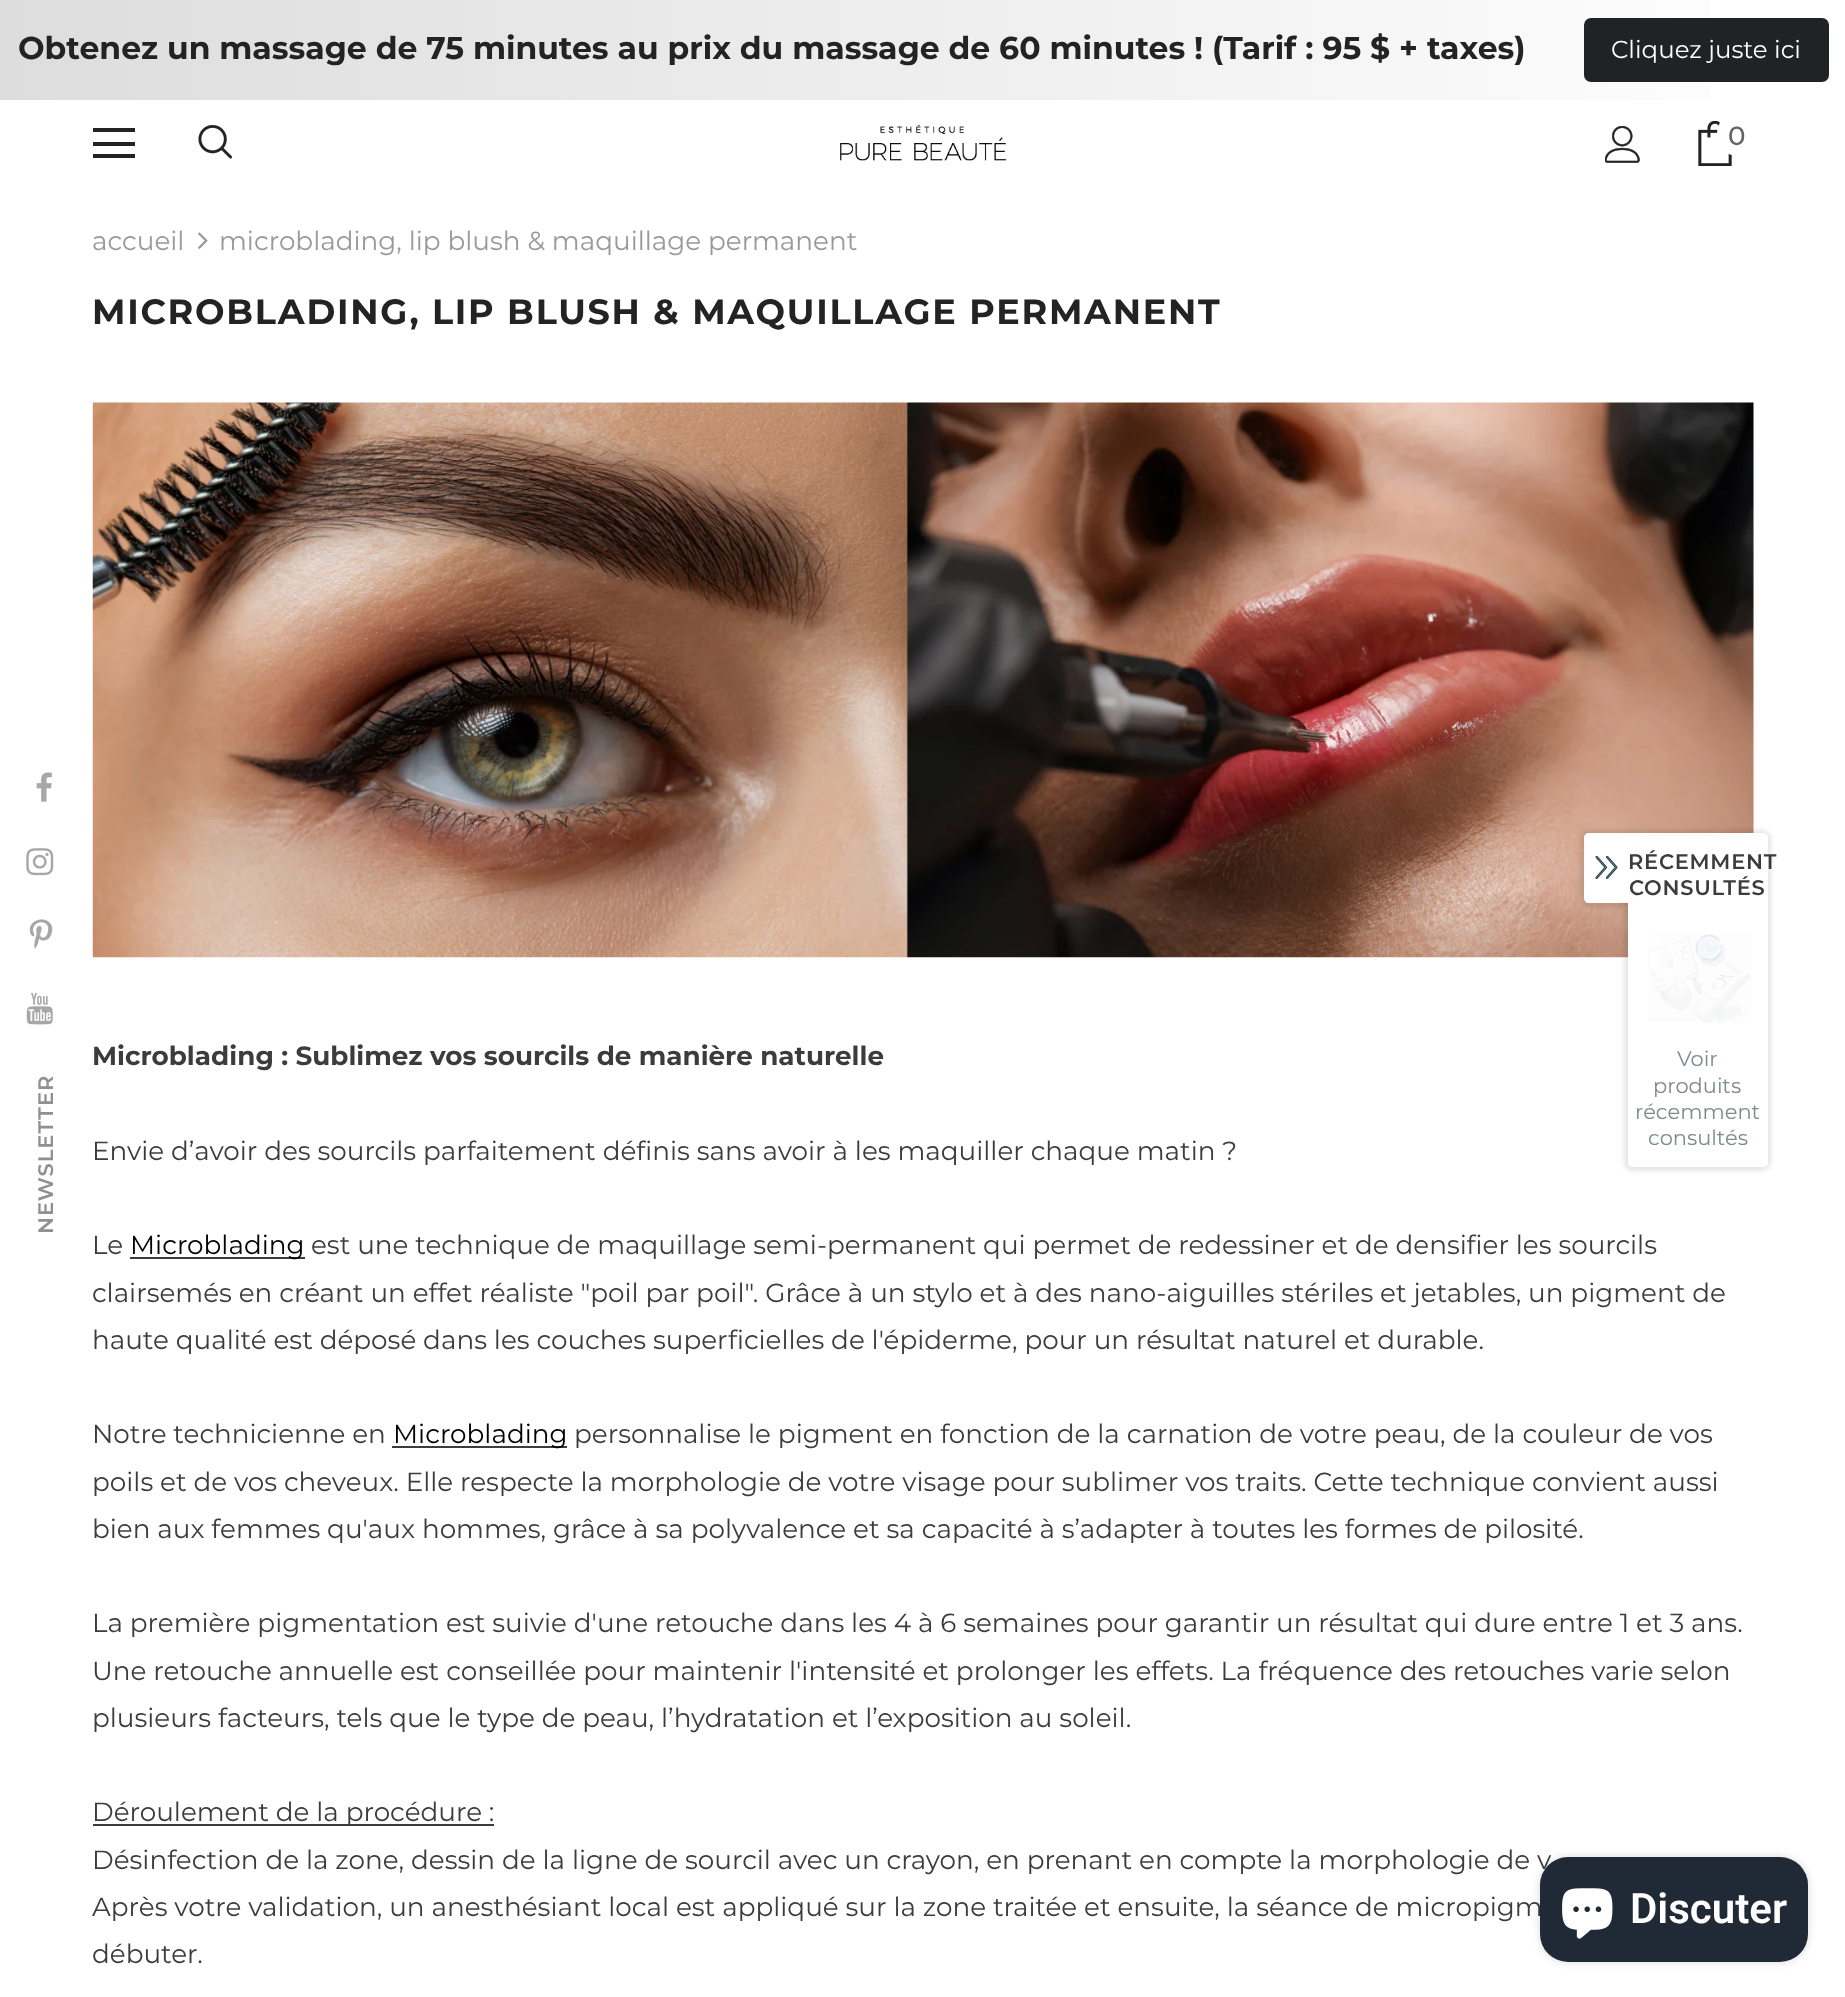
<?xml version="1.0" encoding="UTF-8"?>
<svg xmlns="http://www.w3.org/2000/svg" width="1845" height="1997">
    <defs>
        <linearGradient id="g1" gradientUnits="userSpaceOnUse" x1="0" y1="50" x2="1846" y2="50"><stop offset="0" stop-color="#DDDDDD"/><stop offset="1" stop-color="#FFFFFF"/></linearGradient>
        <filter id="blur1" x="-50%" y="-200%" width="200%" height="500%"><feGaussianBlur stdDeviation="2.5"/></filter>
        <filter id="blur2" x="-50%" y="-200%" width="200%" height="500%"><feGaussianBlur stdDeviation="4.5"/></filter>
    </defs>
    <rect width="100%" height="100%" fill="#FFFFFF"/>
    <rect x="0" y="0" width="1710" height="100" fill="url(#g1)"/>
    <text x="18" y="59" font-family="Montserrat" font-size="31.5" font-weight="700" fill="#232323">Obtenez un massage de 75 minutes au prix du massage de 60 minutes ! (Tarif : 95 $ + taxes)</text>
    <rect x="1584" y="18" width="245" height="64" rx="7" fill="#202223"/>
    <text x="1611" y="58" font-family="Montserrat" font-size="24.5" fill="#FFFFFF">Cliquez juste ici</text>
    <rect x="93" y="128" width="42" height="4" fill="#232323"/>
    <rect x="93" y="142" width="42" height="4" fill="#232323"/>
    <rect x="93" y="154" width="42" height="4" fill="#232323"/>
    <image x="198" y="124" width="34" height="35" href="img_01.png"/>
    <image x="840" y="124" width="167" height="37" href="img_02.png"/>
    <image x="1605" y="126" width="35" height="37" href="img_03.png"/>
    <image x="1698" y="121" width="34" height="45" href="img_04.png"/>
    <ellipse cx="1737" cy="134" rx="20" ry="22" fill="#FFFFFF"/>
    <text x="1728" y="145" font-family="Montserrat" font-size="26.25" font-weight="500" fill="#646464">0</text>
    <text x="92" y="250" font-family="Montserrat" font-size="26.25" fill="#999999">accueil</text>
    <image x="198" y="232" width="10" height="17" href="img_05.png"/>
    <text x="219" y="250" font-family="Montserrat" font-size="26.25" fill="#999999">microblading, lip blush &amp; maquillage permanent</text>
    <text x="92" y="324" font-family="Montserrat" font-size="35" font-weight="700" letter-spacing="1.75" fill="#232323">MICROBLADING, LIP BLUSH &amp; MAQUILLAGE PERMANENT</text>
    <image x="92" y="402" width="1662" height="556" href="img_06.png"/>
    <text x="92" y="1065" font-family="Montserrat" font-size="26.25" font-weight="700" fill="#3C3C3C">Microblading : Sublimez vos sourcils de manière naturelle</text>
    <text x="92" y="1160" font-family="Montserrat" font-size="26.25" fill="#3C3C3C">Envie d’avoir des sourcils parfaitement définis sans avoir à les maquiller chaque matin ?</text>
    <text x="92" y="1254" font-family="Montserrat" font-size="26.25" fill="#3C3C3C">Le</text>
    <rect x="130" y="1257" width="175" height="2" fill="#3C3C3C"/>
    <text x="130" y="1254" font-family="Montserrat" font-size="26.25" fill="#000000">Microblading</text>
    <text x="311" y="1254" font-family="Montserrat" font-size="26.25" fill="#3C3C3C">est une technique de maquillage semi-permanent qui permet de redessiner et de densifier les sourcils</text>
    <text font-family="Montserrat" font-size="26.25" fill="#3C3C3C">
        <tspan x="92" y="1302">clairsemés en créant un effet réaliste "poil par poil". Grâce à un stylo et à des nano-aiguilles stériles et jetables, un pigment de</tspan>
        <tspan x="92" y="1349">haute qualité est déposé dans les couches superficielles de l'épiderme, pour un résultat naturel et durable.</tspan>
    </text>
    <text x="92" y="1443" font-family="Montserrat" font-size="26.25" fill="#3C3C3C">Notre technicienne en</text>
    <rect x="392" y="1446" width="175" height="2" fill="#3C3C3C"/>
    <text x="393" y="1443" font-family="Montserrat" font-size="26.25" fill="#000000">Microblading</text>
    <text x="574" y="1443" font-family="Montserrat" font-size="26.25" fill="#3C3C3C">personnalise le pigment en fonction de la carnation de votre peau, de la couleur de vos</text>
    <text font-family="Montserrat" font-size="26.25" fill="#3C3C3C">
        <tspan x="92" y="1491">poils et de vos cheveux. Elle respecte la morphologie de votre visage pour sublimer vos traits. Cette technique convient aussi</tspan>
        <tspan x="92" y="1538">bien aux femmes qu'aux hommes, grâce à sa polyvalence et sa capacité à s’adapter à toutes les formes de pilosité.</tspan>
    </text>
    <text font-family="Montserrat" font-size="26.25" fill="#3C3C3C">
        <tspan x="92" y="1632">La première pigmentation est suivie d'une retouche dans les 4 à 6 semaines pour garantir un résultat qui dure entre 1 et 3 ans.</tspan>
        <tspan x="92" y="1680">Une retouche annuelle est conseillée pour maintenir l'intensité et prolonger les effets. La fréquence des retouches varie selon</tspan>
        <tspan x="92" y="1727">plusieurs facteurs, tels que le type de peau, l’hydratation et l’exposition au soleil.</tspan>
    </text>
    <rect x="93" y="1824" width="401" height="2" fill="#3C3C3C"/>
    <text font-family="Montserrat" font-size="26.25" fill="#3C3C3C">
        <tspan x="92" y="1821">Déroulement de la procédure :</tspan>
        <tspan x="92" y="1869">Désinfection de la zone, dessin de la ligne de sourcil avec un crayon, en prenant en compte la morphologie de v</tspan>
        <tspan x="92" y="1916">Après votre validation, un anesthésiant local est appliqué sur la zone traitée et ensuite, la séance de micropigm</tspan>
        <tspan x="92" y="1963">débuter.</tspan>
    </text>
    <image x="36" y="772" width="16" height="30" href="img_07.png"/>
    <image x="26" y="848" width="28" height="28" href="img_08.png"/>
    <image x="29" y="919" width="24" height="30" href="img_09.png"/>
    <image x="26" y="992" width="27" height="33" href="img_10.png"/>
    <text x="53" y="1234" transform="rotate(-90 53 1234)" font-family="Montserrat" font-size="21" font-weight="600" letter-spacing="1" fill="#909090">NEWSLETTER</text>
    <rect x="1624" y="830" width="147" height="341" rx="9" fill="#000000" fill-opacity="0.1" filter="url(#blur1)"/>
    <path d="M 1628 833 H 1763 C 1766 833 1768 835 1768 838 V 1162 C 1768 1165 1766 1167 1763 1167 H 1633 C 1630 1167 1628 1165 1628 1162 Z" fill="#FFFFFF"/>
    <rect x="1580" y="830" width="53" height="77" rx="9" fill="#000000" fill-opacity="0.1" filter="url(#blur1)"/>
    <path d="M 1589 833 H 1629 V 903 H 1589 C 1586 903 1584 901 1584 898 V 838 C 1584 835 1586 833 1589 833 Z" fill="#FFFFFF"/>
    <image x="1595" y="856" width="23" height="23" href="img_11.png"/>
    <rect x="1628" y="833" width="8" height="76" fill="#FFFFFF"/>
    <text x="1628" y="869" font-family="Montserrat" font-size="21" font-weight="600" letter-spacing="0.75" fill="#3C3C3C">RÉCEMMENT</text>
    <text x="1629" y="895" font-family="Montserrat" font-size="21" font-weight="600" letter-spacing="0.75" fill="#3C3C3C">CONSULTÉS</text>
    <image x="1648" y="934" width="103" height="89" href="img_12.png"/>
    <text x="1677" y="1066" font-family="Montserrat" font-size="21" fill="#7D8B8E">Voir</text>
    <text x="1653" y="1093" font-family="Montserrat" font-size="21" fill="#7D8B8E">produits</text>
    <text x="1635" y="1119" font-family="Montserrat" font-size="21" fill="#7D8B8E">récemment</text>
    <text x="1648" y="1145" font-family="Montserrat" font-size="21" fill="#7D8B8E">consultés</text>
    <rect x="1540" y="1857" width="268" height="105" rx="28" fill="#000000" fill-opacity="0.15" filter="url(#blur2)"/>
    <rect x="1540" y="1857" width="268" height="105" rx="28" fill="#202A36"/>
    <image x="1562" y="1888" width="51" height="51" href="img_13.png"/>
    <text x="1630" y="1923" font-family="Roboto" font-size="42" font-weight="600" fill="#FFFFFF">Discuter</text>
</svg>
